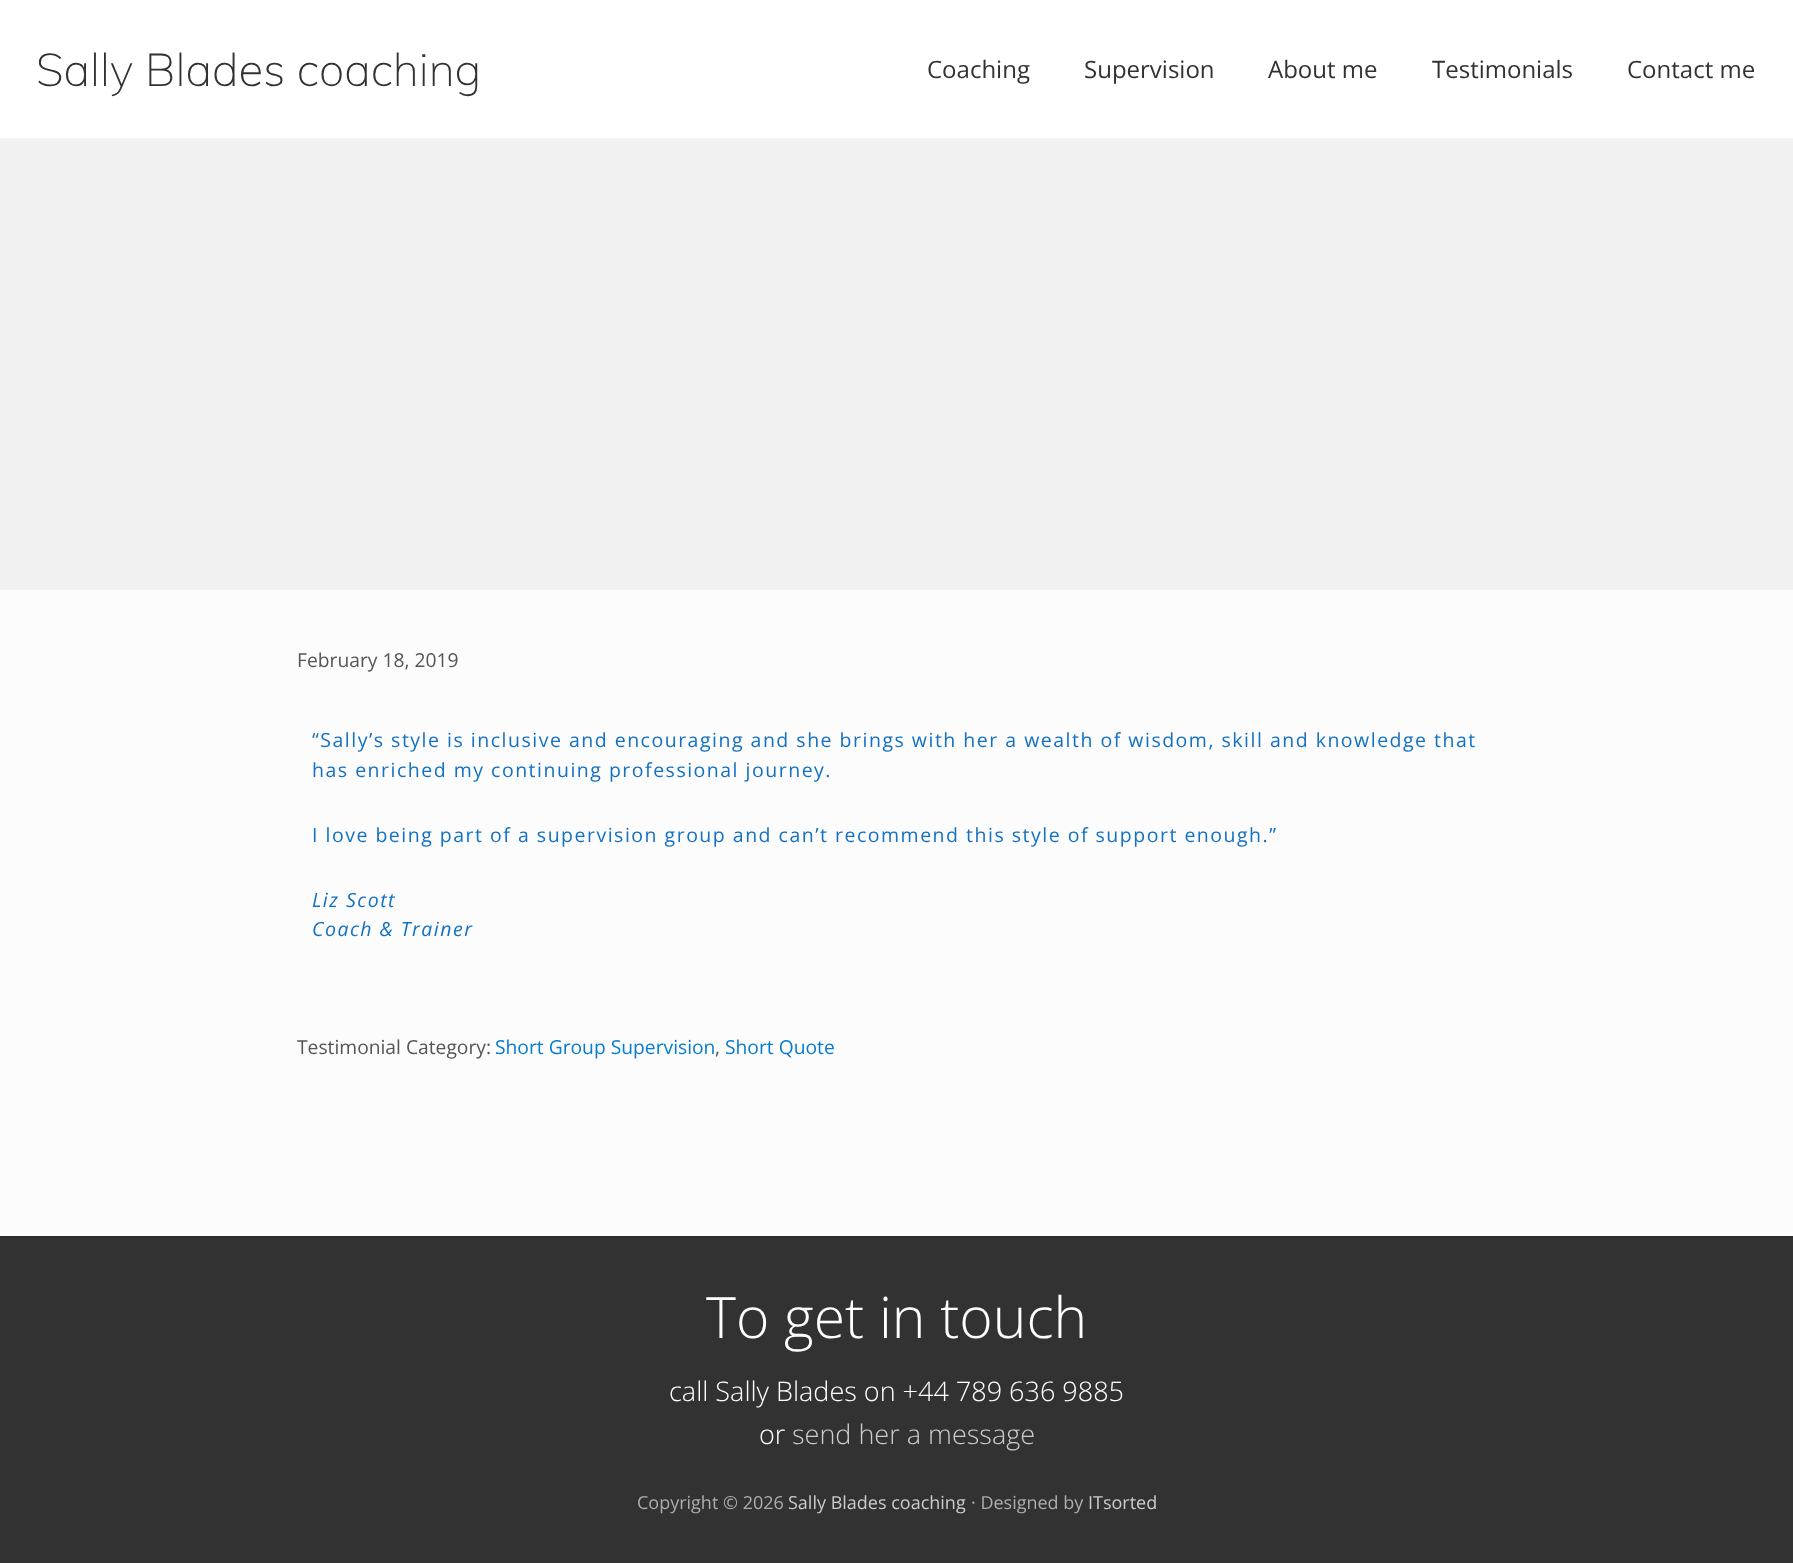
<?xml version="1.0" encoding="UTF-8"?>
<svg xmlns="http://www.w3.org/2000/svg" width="1793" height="1563">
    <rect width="100%" height="100%" fill="#FCFCFC"/>
    <rect x="0" y="0" width="1793" height="138" fill="#FFFFFF"/>
    <rect x="0" y="138" width="1793" height="2" fill="#F2F2F2"/>
    <text x="36" y="86" font-family="Muli" font-size="45.5" font-weight="200" fill="#323232">Sally Blades coaching</text>
    <text x="927" y="78" font-family="Open Sans" font-size="24" fill="#323232">Coaching</text>
    <text x="1084" y="78" font-family="Open Sans" font-size="24" fill="#323232">Supervision</text>
    <text x="1268" y="78" font-family="Open Sans" font-size="24" fill="#323232">About me</text>
    <text x="1432" y="78" font-family="Open Sans" font-size="24" fill="#323232">Testimonials</text>
    <text x="1627" y="78" font-family="Open Sans" font-size="24" fill="#323232">Contact me</text>
    <rect x="0" y="140" width="1793" height="450" fill="#F1F1F1"/>
    <text x="297" y="667" font-family="Open Sans" font-size="19.25" fill="#555555">February 18, 2019</text>
    <text font-family="Open Sans" font-size="19.5" letter-spacing="1.5" fill="#1271C3">
        <tspan x="312" y="747">“Sally’s style is inclusive and encouraging and she brings with her a wealth of wisdom, skill and knowledge that</tspan>
        <tspan x="312" y="777">has enriched my continuing professional journey.</tspan>
    </text>
    <text x="312" y="842" font-family="Open Sans" font-size="19.5" letter-spacing="1.5" fill="#1271C3">I love being part of a supervision group and can’t recommend this style of support enough.”</text>
    <text font-family="Open Sans" font-size="19.5" font-style="italic" letter-spacing="1.5" fill="#1271C3">
        <tspan x="312" y="907">Liz Scott</tspan>
        <tspan x="312" y="936">Coach &amp; Trainer</tspan>
    </text>
    <text x="297" y="1054" font-family="Open Sans" font-size="19.25" fill="#555555">Testimonial Category:</text>
    <text x="495" y="1054" font-family="Open Sans" font-size="19.25" fill="#067CCC">Short Group Supervision</text>
    <text x="715" y="1054" font-family="Open Sans" font-size="19.25" fill="#555555">,</text>
    <text x="725" y="1054" font-family="Open Sans" font-size="19.25" fill="#067CCC">Short Quote</text>
    <rect x="0" y="1238" width="1793" height="325" fill="#323232"/>
    <rect x="0" y="1236" width="1793" height="2" fill="#2D2D2D"/>
    <text x="706" y="1338" font-family="Open Sans" font-size="57" font-weight="300" fill="#FFFFFF">To get in touch</text>
    <text x="669" y="1401" font-family="Open Sans" font-size="27" font-weight="300" fill="#FFFFFF">call Sally Blades on +44 789 636 9885</text>
    <text x="759" y="1444" font-family="Open Sans" font-size="27" font-weight="300" fill="#FFFFFF">or</text>
    <text x="792" y="1444" font-family="Open Sans" font-size="27" font-weight="300" fill="#CCCCCC">send her a message</text>
    <text x="637" y="1509" font-family="Open Sans" font-size="18" fill="#ADADAD">Copyright © 2026</text>
    <text x="788" y="1509" font-family="Open Sans" font-size="18" fill="#CCCCCC">Sally Blades coaching</text>
    <text x="971" y="1509" font-family="Open Sans" font-size="18" fill="#ADADAD">· Designed by</text>
    <text x="1088" y="1509" font-family="Open Sans" font-size="18" fill="#CCCCCC">ITsorted</text>
</svg>
